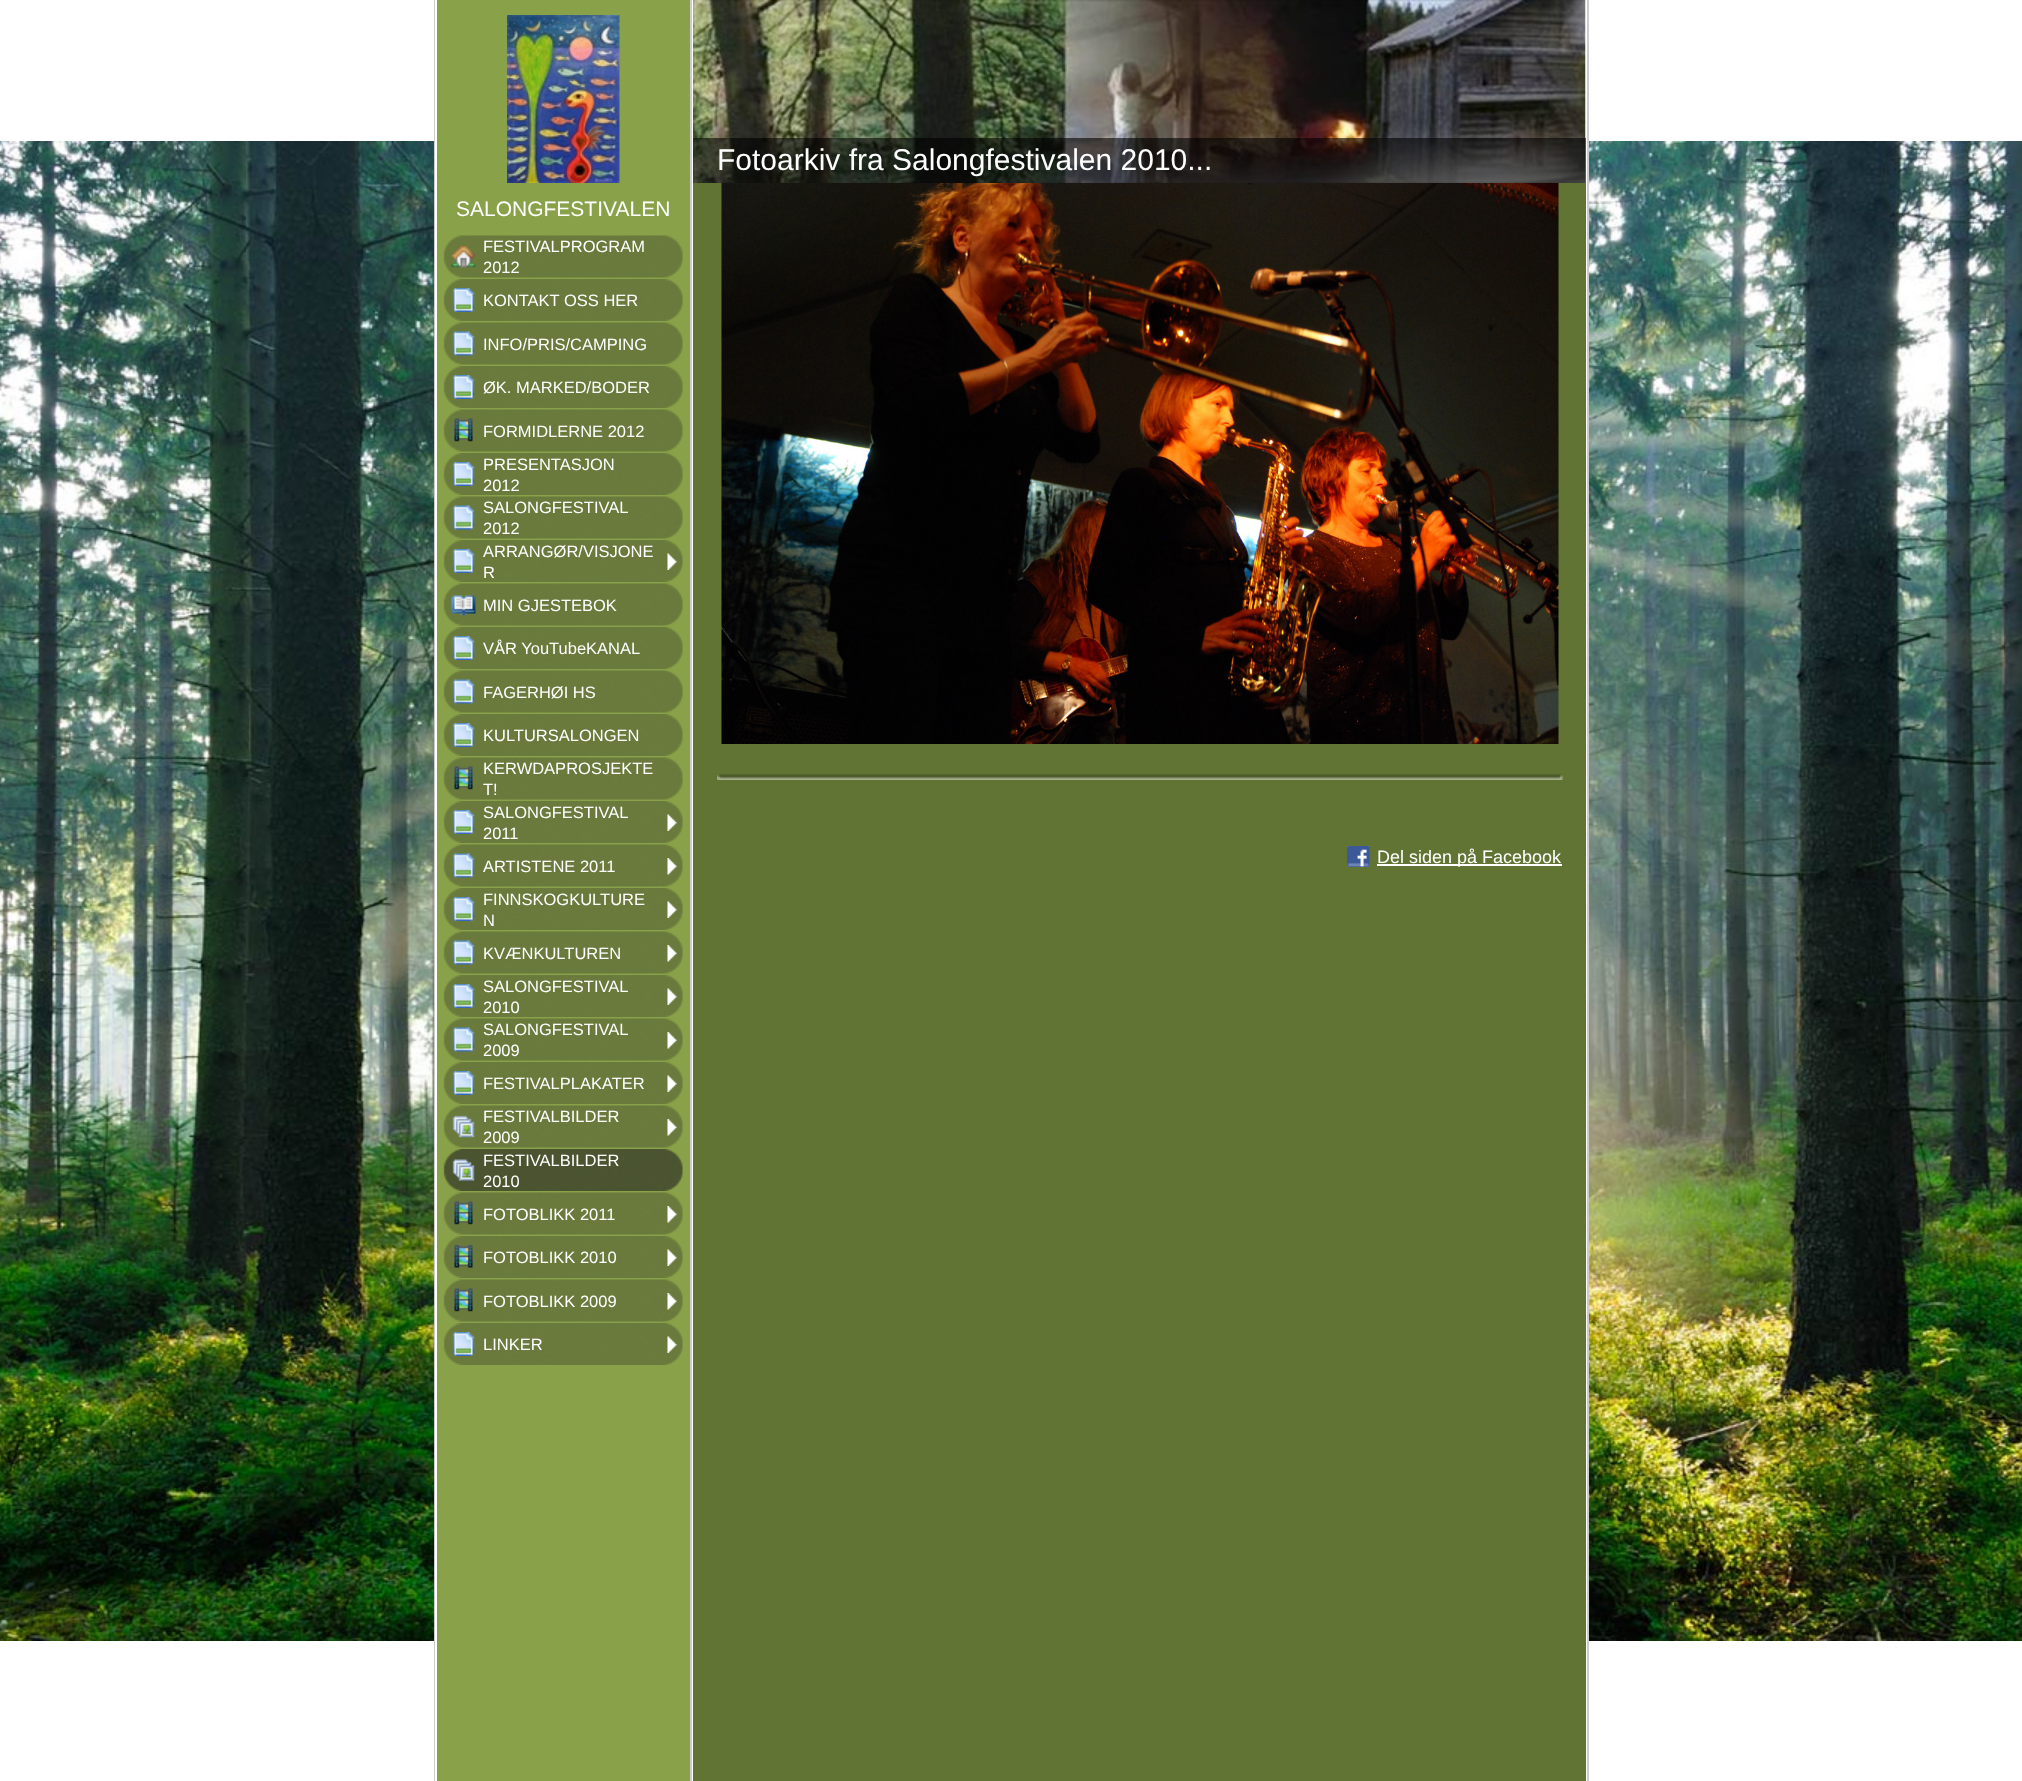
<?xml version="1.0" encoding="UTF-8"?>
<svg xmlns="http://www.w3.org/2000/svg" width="2022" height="1781">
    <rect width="100%" height="100%" fill="#FFFFFF"/>
    <image x="0" y="141" width="2022" height="1500" href="img_01.png"/>
    <rect x="692" y="141" width="895" height="1500" fill="#FFFFFF"/>
    <rect x="434" y="0" width="1" height="1781" fill="#CCCCCC"/>
    <rect x="435" y="141" width="2" height="1500" fill="#FFFFFF"/>
    <rect x="437" y="0" width="253" height="1781" fill="#89A249"/>
    <image x="507" y="15" width="113" height="168" href="img_02.png"/>
    <text x="456" y="216" font-family="Liberation Sans" font-size="21" fill="#FFFFFF">SALONGFESTIVALEN</text>
    <image x="443" y="235" width="240" height="43" href="img_03.png"/>
    <image x="451" y="245" width="25" height="23" href="img_04.png"/>
    <text font-family="Liberation Sans" font-size="16.5" fill="#FFFFFF">
        <tspan x="483" y="252">FESTIVALPROGRAM</tspan>
        <tspan x="483" y="273">2012</tspan>
    </text>
    <image x="443" y="279" width="240" height="42" href="img_05.png"/>
    <image x="452" y="288" width="23" height="24" href="img_06.png"/>
    <text x="483" y="306" font-family="Liberation Sans" font-size="16.5" fill="#FFFFFF">KONTAKT OSS HER</text>
    <image x="443" y="322" width="240" height="43" href="img_03.png"/>
    <image x="452" y="331" width="23" height="25" href="img_07.png"/>
    <text x="483" y="350" font-family="Liberation Sans" font-size="16.5" fill="#FFFFFF">INFO/PRIS/CAMPING</text>
    <image x="443" y="366" width="240" height="42" href="img_05.png"/>
    <image x="452" y="375" width="23" height="24" href="img_06.png"/>
    <text x="483" y="393" font-family="Liberation Sans" font-size="16.5" fill="#FFFFFF">ØK. MARKED/BODER</text>
    <image x="443" y="409" width="240" height="43" href="img_03.png"/>
    <image x="454" y="418" width="19" height="24" href="img_08.png"/>
    <text x="483" y="437" font-family="Liberation Sans" font-size="16.5" fill="#FFFFFF">FORMIDLERNE 2012</text>
    <image x="443" y="453" width="240" height="42" href="img_05.png"/>
    <image x="452" y="462" width="23" height="24" href="img_06.png"/>
    <text font-family="Liberation Sans" font-size="16.5" fill="#FFFFFF">
        <tspan x="483" y="470">PRESENTASJON</tspan>
        <tspan x="483" y="491">2012</tspan>
    </text>
    <image x="443" y="496" width="240" height="43" href="img_03.png"/>
    <image x="452" y="505" width="23" height="25" href="img_07.png"/>
    <text font-family="Liberation Sans" font-size="16.5" fill="#FFFFFF">
        <tspan x="483" y="513">SALONGFESTIVAL</tspan>
        <tspan x="483" y="534">2012</tspan>
    </text>
    <image x="443" y="540" width="240" height="42" href="img_05.png"/>
    <image x="452" y="549" width="23" height="24" href="img_06.png"/>
    <image x="667" y="553" width="10" height="17" href="img_09.png"/>
    <text font-family="Liberation Sans" font-size="16.5" fill="#FFFFFF">
        <tspan x="483" y="557">ARRANGØR/VISJONE</tspan>
        <tspan x="483" y="578">R</tspan>
    </text>
    <image x="443" y="583" width="240" height="43" href="img_03.png"/>
    <image x="451" y="595" width="25" height="21" href="img_10.png"/>
    <text x="483" y="611" font-family="Liberation Sans" font-size="16.5" fill="#FFFFFF">MIN GJESTEBOK</text>
    <image x="443" y="627" width="240" height="42" href="img_05.png"/>
    <image x="452" y="636" width="23" height="24" href="img_06.png"/>
    <text x="483" y="654" font-family="Liberation Sans" font-size="16.5" fill="#FFFFFF">VÅR YouTubeKANAL</text>
    <image x="443" y="670" width="240" height="43" href="img_03.png"/>
    <image x="452" y="679" width="23" height="25" href="img_07.png"/>
    <text x="483" y="698" font-family="Liberation Sans" font-size="16.5" fill="#FFFFFF">FAGERHØI HS</text>
    <image x="443" y="714" width="240" height="42" href="img_05.png"/>
    <image x="452" y="723" width="23" height="24" href="img_06.png"/>
    <text x="483" y="741" font-family="Liberation Sans" font-size="16.5" fill="#FFFFFF">KULTURSALONGEN</text>
    <image x="443" y="757" width="240" height="43" href="img_03.png"/>
    <image x="454" y="766" width="19" height="24" href="img_08.png"/>
    <text font-family="Liberation Sans" font-size="16.5" fill="#FFFFFF">
        <tspan x="483" y="774">KERWDAPROSJEKTE</tspan>
        <tspan x="483" y="795">T!</tspan>
    </text>
    <image x="443" y="801" width="240" height="42" href="img_05.png"/>
    <image x="452" y="810" width="23" height="24" href="img_06.png"/>
    <image x="667" y="814" width="10" height="17" href="img_09.png"/>
    <text font-family="Liberation Sans" font-size="16.5" fill="#FFFFFF">
        <tspan x="483" y="818">SALONGFESTIVAL</tspan>
        <tspan x="483" y="839">2011</tspan>
    </text>
    <image x="443" y="844" width="240" height="43" href="img_03.png"/>
    <image x="452" y="853" width="23" height="25" href="img_07.png"/>
    <image x="667" y="858" width="10" height="17" href="img_11.png"/>
    <text x="483" y="872" font-family="Liberation Sans" font-size="16.5" fill="#FFFFFF">ARTISTENE 2011</text>
    <image x="443" y="888" width="240" height="42" href="img_05.png"/>
    <image x="452" y="897" width="23" height="24" href="img_06.png"/>
    <image x="667" y="901" width="10" height="17" href="img_09.png"/>
    <text font-family="Liberation Sans" font-size="16.5" fill="#FFFFFF">
        <tspan x="483" y="905">FINNSKOGKULTURE</tspan>
        <tspan x="483" y="926">N</tspan>
    </text>
    <image x="443" y="931" width="240" height="43" href="img_03.png"/>
    <image x="452" y="940" width="23" height="25" href="img_07.png"/>
    <image x="667" y="945" width="10" height="17" href="img_11.png"/>
    <text x="483" y="959" font-family="Liberation Sans" font-size="16.5" fill="#FFFFFF">KVÆNKULTUREN</text>
    <image x="443" y="975" width="240" height="42" href="img_05.png"/>
    <image x="452" y="984" width="23" height="24" href="img_06.png"/>
    <image x="667" y="988" width="10" height="17" href="img_09.png"/>
    <text font-family="Liberation Sans" font-size="16.5" fill="#FFFFFF">
        <tspan x="483" y="992">SALONGFESTIVAL</tspan>
        <tspan x="483" y="1013">2010</tspan>
    </text>
    <image x="443" y="1018" width="240" height="43" href="img_03.png"/>
    <image x="452" y="1027" width="23" height="25" href="img_07.png"/>
    <image x="667" y="1032" width="10" height="17" href="img_11.png"/>
    <text font-family="Liberation Sans" font-size="16.5" fill="#FFFFFF">
        <tspan x="483" y="1035">SALONGFESTIVAL</tspan>
        <tspan x="483" y="1056">2009</tspan>
    </text>
    <image x="443" y="1062" width="240" height="42" href="img_05.png"/>
    <image x="452" y="1071" width="23" height="24" href="img_06.png"/>
    <image x="667" y="1075" width="10" height="17" href="img_09.png"/>
    <text x="483" y="1089" font-family="Liberation Sans" font-size="16.5" fill="#FFFFFF">FESTIVALPLAKATER</text>
    <image x="443" y="1105" width="240" height="43" href="img_03.png"/>
    <image x="452" y="1115" width="23" height="23" href="img_12.png"/>
    <image x="667" y="1119" width="10" height="17" href="img_11.png"/>
    <text font-family="Liberation Sans" font-size="16.5" fill="#FFFFFF">
        <tspan x="483" y="1122">FESTIVALBILDER</tspan>
        <tspan x="483" y="1143">2009</tspan>
    </text>
    <image x="443" y="1149" width="240" height="42" href="img_13.png"/>
    <image x="452" y="1159" width="23" height="22" href="img_14.png"/>
    <text font-family="Liberation Sans" font-size="16.5" fill="#FFFFFF">
        <tspan x="483" y="1166">FESTIVALBILDER</tspan>
        <tspan x="483" y="1187">2010</tspan>
    </text>
    <image x="443" y="1192" width="240" height="43" href="img_03.png"/>
    <image x="454" y="1201" width="19" height="24" href="img_08.png"/>
    <image x="667" y="1206" width="10" height="17" href="img_11.png"/>
    <text x="483" y="1220" font-family="Liberation Sans" font-size="16.5" fill="#FFFFFF">FOTOBLIKK 2011</text>
    <image x="443" y="1236" width="240" height="42" href="img_05.png"/>
    <image x="454" y="1245" width="19" height="23" href="img_15.png"/>
    <image x="667" y="1249" width="10" height="17" href="img_09.png"/>
    <text x="483" y="1263" font-family="Liberation Sans" font-size="16.5" fill="#FFFFFF">FOTOBLIKK 2010</text>
    <image x="443" y="1279" width="240" height="43" href="img_03.png"/>
    <image x="454" y="1288" width="19" height="24" href="img_08.png"/>
    <image x="667" y="1293" width="10" height="17" href="img_11.png"/>
    <text x="483" y="1307" font-family="Liberation Sans" font-size="16.5" fill="#FFFFFF">FOTOBLIKK 2009</text>
    <image x="443" y="1323" width="240" height="42" href="img_05.png"/>
    <image x="452" y="1332" width="23" height="24" href="img_06.png"/>
    <image x="667" y="1336" width="10" height="17" href="img_09.png"/>
    <text x="483" y="1350" font-family="Liberation Sans" font-size="16.5" fill="#FFFFFF">LINKER</text>
    <rect x="690" y="0" width="2" height="1781" fill="#CCCCCC"/>
    <rect x="693" y="183" width="893" height="1598" fill="#617433"/>
    <image x="693" y="0" width="893" height="183" href="img_16.png"/>
    <rect x="693" y="138" width="893" height="45" fill="#000000" fill-opacity="0.6"/>
    <text x="717" y="170" font-family="Liberation Sans" font-size="30" fill="#FFFFFF">Fotoarkiv fra Salongfestivalen 2010...</text>
    <image x="721" y="183" width="838" height="561" href="img_17.png"/>
    <image x="717" y="774" width="846" height="6" href="img_18.png"/>
    <image x="1347" y="846" width="23" height="21" href="img_19.png"/>
    <rect x="1377" y="864" width="185" height="2" fill="#FFFFFF"/>
    <text x="1377" y="863" font-family="Liberation Sans" font-size="18" fill="#FFFFFF">Del siden på Facebook</text>
    <rect x="1587" y="0" width="2" height="1781" fill="#CCCCCC"/>
</svg>
